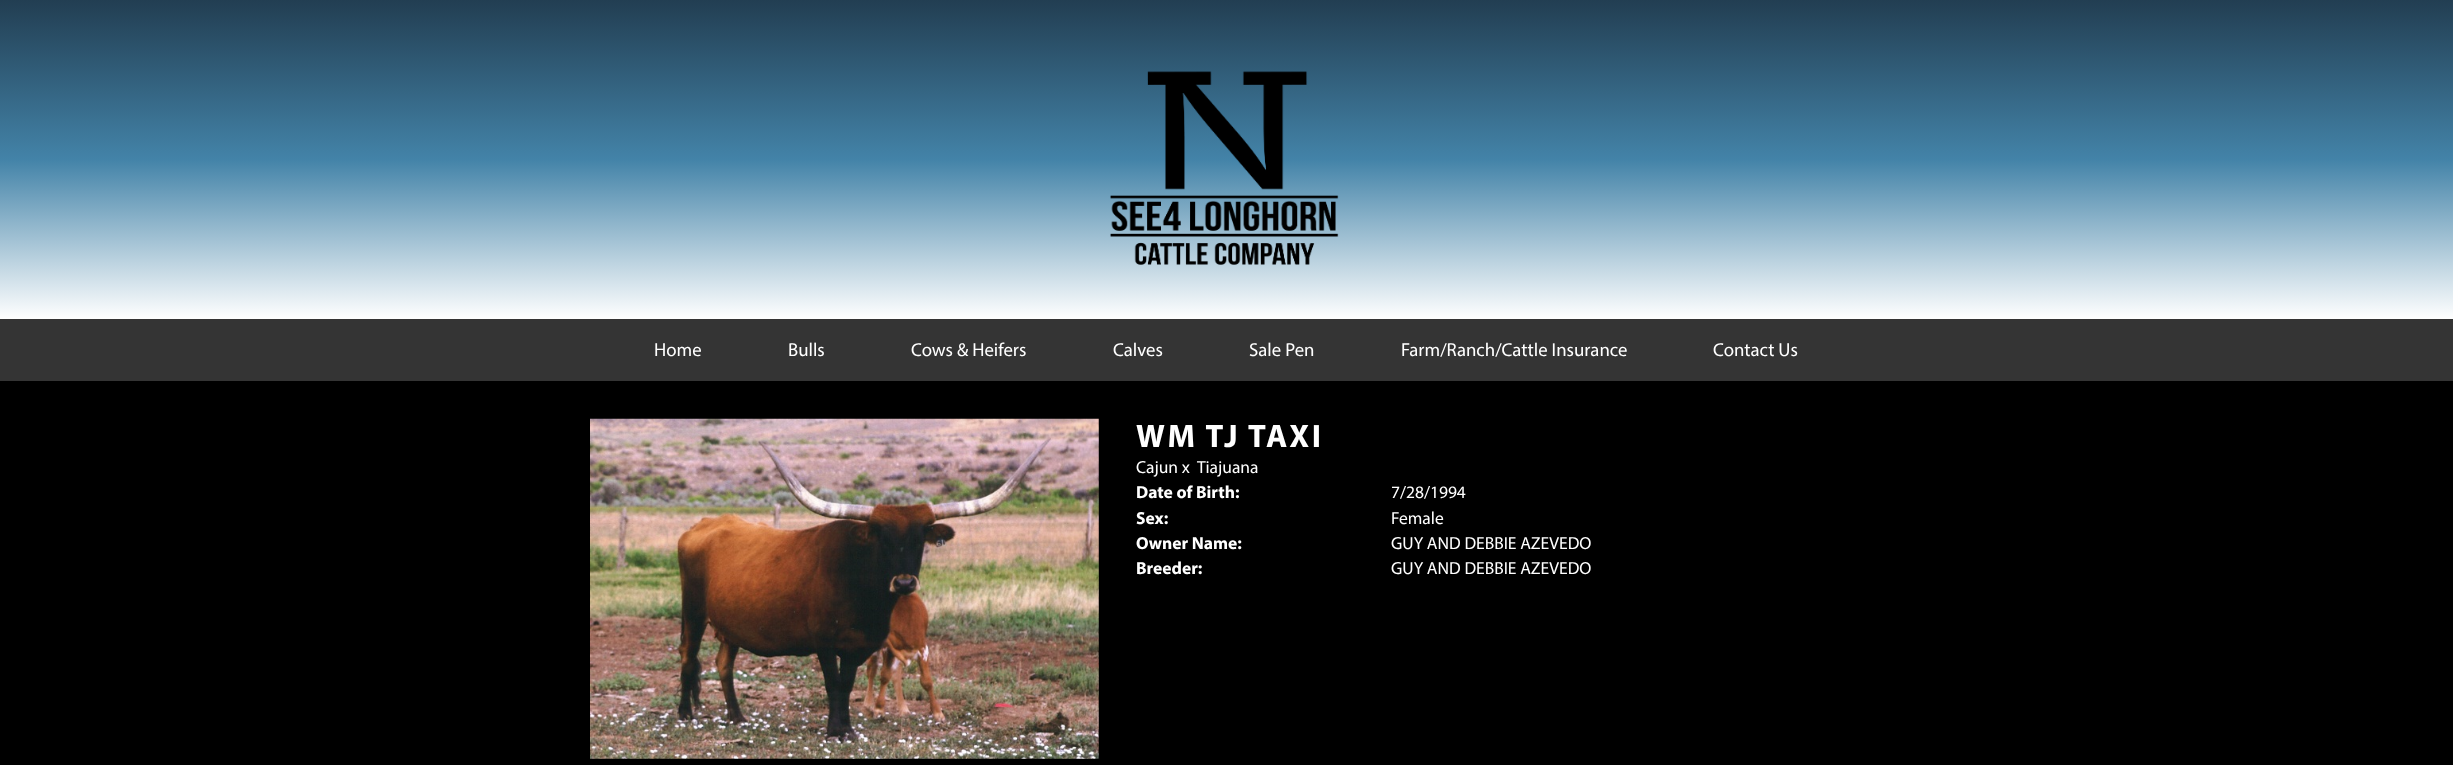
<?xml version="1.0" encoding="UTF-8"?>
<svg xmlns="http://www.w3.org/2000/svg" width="2453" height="765">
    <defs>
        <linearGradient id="g1" gradientUnits="userSpaceOnUse" x1="1227" y1="0" x2="1227" y2="319"><stop offset="0" stop-color="#223E52"/><stop offset="0.5" stop-color="#4383A8"/><stop offset="1" stop-color="#FFFFFF"/></linearGradient>
    </defs>
    <rect width="100%" height="100%" fill="#000000"/>
    <rect x="0" y="0" width="2453" height="319" fill="url(#g1)"/>
    <image x="1110" y="71" width="229" height="194" href="img_01.png"/>
    <rect x="0" y="319" width="2453" height="62" fill="#343434"/>
    <text x="654" y="356" font-family="Myriad" font-size="18.75" fill="#FFFFFF">Home</text>
    <text x="788" y="356" font-family="Myriad" font-size="18.75" fill="#FFFFFF">Bulls</text>
    <text x="911" y="356" font-family="Myriad" font-size="18.75" fill="#FFFFFF">Cows &amp; Heifers</text>
    <text x="1113" y="356" font-family="Myriad" font-size="18.75" fill="#FFFFFF">Calves</text>
    <text x="1249" y="356" font-family="Myriad" font-size="18.75" fill="#FFFFFF">Sale Pen</text>
    <text x="1401" y="356" font-family="Myriad" font-size="18.75" fill="#FFFFFF">Farm/Ranch/Cattle Insurance</text>
    <text x="1713" y="356" font-family="Myriad" font-size="18.75" fill="#FFFFFF">Contact Us</text>
    <image x="590" y="418" width="509" height="341" href="img_02.png"/>
    <text x="1136" y="447" font-family="Myriad" font-size="32.5" font-weight="700" letter-spacing="2.6" fill="#FFFFFF">WM TJ TAXI</text>
    <text x="1136" y="473" font-family="Myriad" font-size="17.5" fill="#FFFFFF">Cajun x</text>
    <text x="1197" y="473" font-family="Myriad" font-size="17.5" fill="#FFFFFF">Tiajuana</text>
    <text x="1136" y="498" font-family="Myriad" font-size="17.5" font-weight="700" fill="#FFFFFF">Date of Birth:</text>
    <text x="1391" y="498" font-family="Myriad" font-size="17.5" fill="#FFFFFF">7/28/1994</text>
    <text x="1136" y="524" font-family="Myriad" font-size="17.5" font-weight="700" fill="#FFFFFF">Sex:</text>
    <text x="1391" y="524" font-family="Myriad" font-size="17.5" fill="#FFFFFF">Female</text>
    <text x="1136" y="549" font-family="Myriad" font-size="17.5" font-weight="700" fill="#FFFFFF">Owner Name:</text>
    <text x="1391" y="549" font-family="Myriad" font-size="17.5" fill="#FFFFFF">GUY AND DEBBIE AZEVEDO</text>
    <text x="1136" y="574" font-family="Myriad" font-size="17.5" font-weight="700" fill="#FFFFFF">Breeder:</text>
    <text x="1391" y="574" font-family="Myriad" font-size="17.5" fill="#FFFFFF">GUY AND DEBBIE AZEVEDO</text>
</svg>
